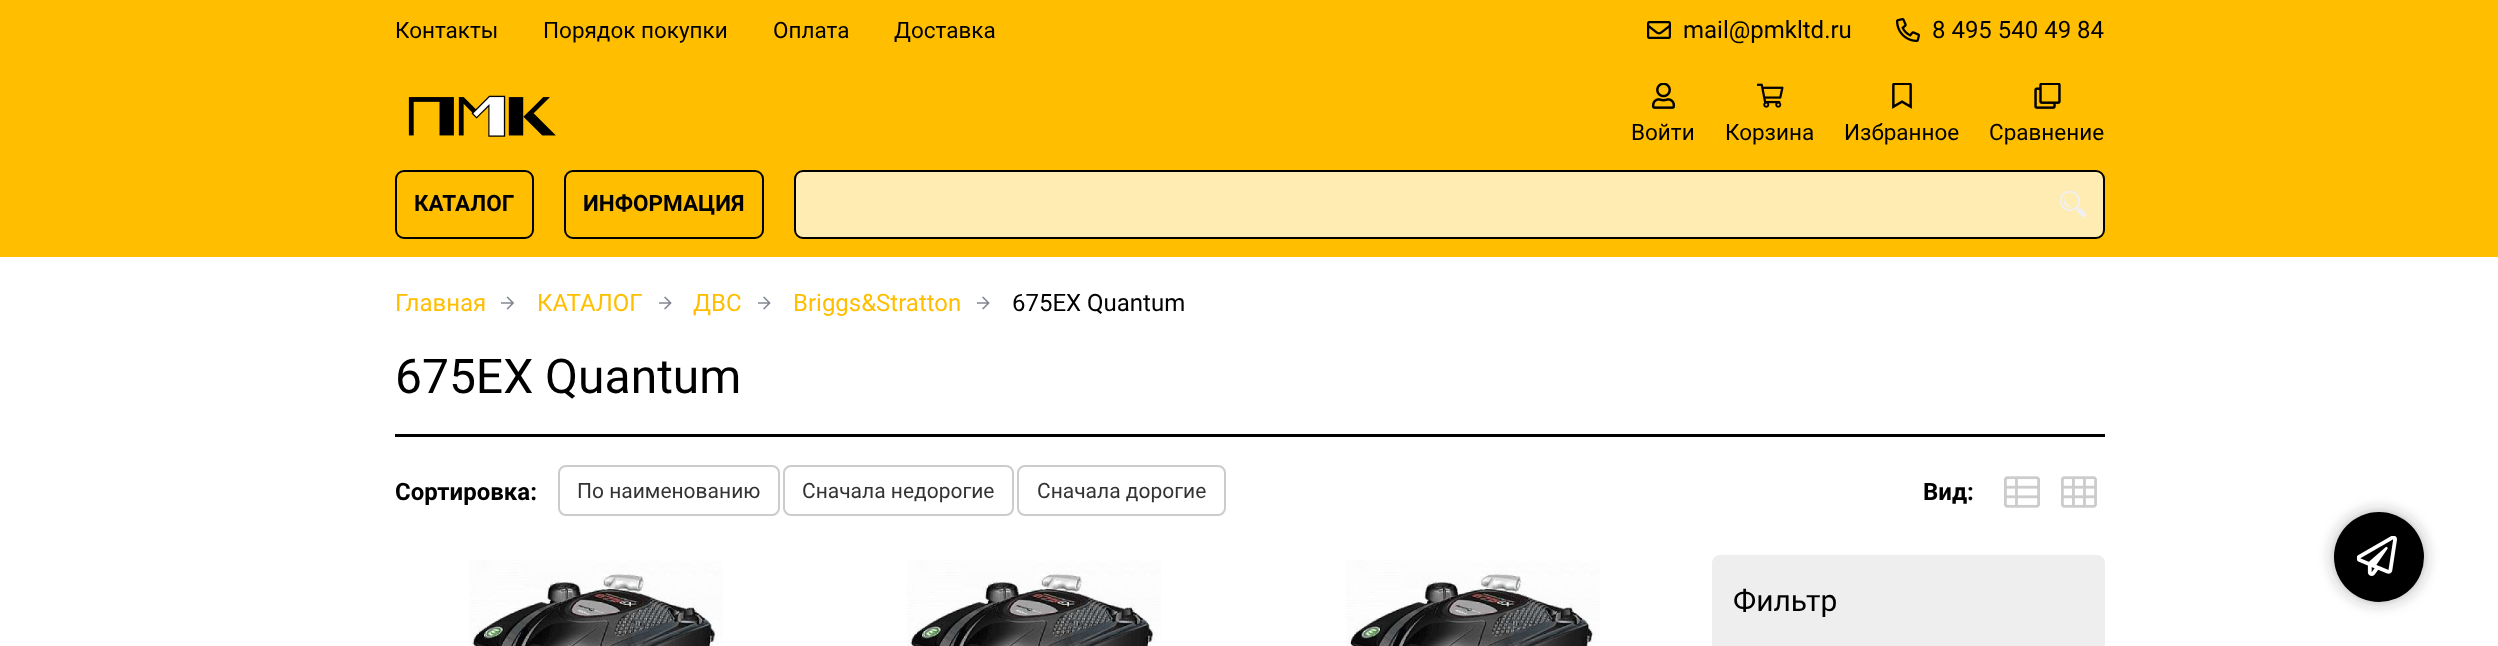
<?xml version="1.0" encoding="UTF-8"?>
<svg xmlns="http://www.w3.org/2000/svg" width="2498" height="646">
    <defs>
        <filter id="blur1" x="-50%" y="-200%" width="200%" height="500%"><feGaussianBlur stdDeviation="7.5"/></filter>
    </defs>
    <rect width="100%" height="100%" fill="#FFFFFF"/>
    <rect x="0" y="0" width="2498" height="257" fill="#FFBE00"/>
    <text x="395" y="38" font-family="Roboto" font-size="22.5" fill="#000000">Контакты</text>
    <text x="543" y="38" font-family="Roboto" font-size="22.5" fill="#000000">Порядок покупки</text>
    <text x="773" y="38" font-family="Roboto" font-size="22.5" fill="#000000">Оплата</text>
    <text x="894" y="38" font-family="Roboto" font-size="22.5" fill="#000000">Доставка</text>
    <image x="1647" y="21" width="24" height="18" href="img_01.png"/>
    <text x="1683" y="38" font-family="Roboto" font-size="24" fill="#000000">mail@pmkltd.ru</text>
    <image x="1896" y="18" width="24" height="24" href="img_02.png"/>
    <text x="1932" y="38" font-family="Roboto" font-size="24" fill="#000000">8 495 540 49 84</text>
    <image x="408" y="95" width="148" height="42" href="img_03.png"/>
    <image x="1651" y="83" width="25" height="26" href="img_04.png"/>
    <text x="1631" y="140" font-family="Roboto" font-size="22.5" fill="#000000">Войти</text>
    <image x="1757" y="83" width="27" height="25" href="img_05.png"/>
    <text x="1725" y="140" font-family="Roboto" font-size="22.5" fill="#000000">Корзина</text>
    <image x="1892" y="83" width="20" height="26" href="img_06.png"/>
    <text x="1844" y="140" font-family="Roboto" font-size="22.5" fill="#000000">Избранное</text>
    <image x="2034" y="83" width="27" height="26" href="img_07.png"/>
    <text x="1989" y="140" font-family="Roboto" font-size="22.5" fill="#000000">Сравнение</text>
    <rect x="396" y="171" width="137" height="67" rx="8" fill="none" stroke="#000000" stroke-width="2"/>
    <text x="414" y="211" font-family="Roboto" font-size="22.5" font-weight="700" fill="#000000">КАТАЛОГ</text>
    <rect x="565" y="171" width="198" height="67" rx="8" fill="none" stroke="#000000" stroke-width="2"/>
    <text x="583" y="211" font-family="Roboto" font-size="22.5" font-weight="700" fill="#000000">ИНФОРМАЦИЯ</text>
    <rect x="795" y="171" width="1309" height="67" rx="8" fill="#FFECB3" stroke="#000000" stroke-width="2"/>
    <image x="2060" y="191" width="27" height="27" href="img_08.png"/>
    <text x="395" y="311" font-family="Roboto" font-size="24" fill="#FFBE00">Главная</text>
    <image x="501" y="296" width="13" height="14" href="img_09.png"/>
    <text x="537" y="311" font-family="Roboto" font-size="24" fill="#FFBE00">КАТАЛОГ</text>
    <image x="659" y="296" width="13" height="14" href="img_10.png"/>
    <text x="693" y="311" font-family="Roboto" font-size="24" fill="#FFBE00">ДВС</text>
    <image x="758" y="296" width="13" height="14" href="img_10.png"/>
    <text x="793" y="311" font-family="Roboto" font-size="24" fill="#FFBE00">Briggs&amp;Stratton</text>
    <image x="977" y="296" width="13" height="14" href="img_10.png"/>
    <text x="1012" y="311" font-family="Roboto" font-size="24" fill="#000000">675EX Quantum</text>
    <rect x="395" y="434" width="1710" height="3" fill="#000000"/>
    <text x="395" y="393" font-family="Roboto" font-size="48" fill="#000000">675EX Quantum</text>
    <text x="395" y="500" font-family="Roboto" font-size="24" font-weight="700" fill="#000000">Сортировка:</text>
    <rect x="559" y="466" width="220" height="49" rx="7" fill="none" stroke="#CCCCCC" stroke-width="2"/>
    <text x="577" y="498" font-family="Roboto" font-size="21" fill="#333333">По наименованию</text>
    <rect x="784" y="466" width="229" height="49" rx="7" fill="none" stroke="#CCCCCC" stroke-width="2"/>
    <text x="802" y="498" font-family="Roboto" font-size="21" fill="#333333">Сначала недорогие</text>
    <rect x="1018" y="466" width="207" height="49" rx="7" fill="none" stroke="#CCCCCC" stroke-width="2"/>
    <text x="1037" y="498" font-family="Roboto" font-size="21" fill="#333333">Сначала дорогие</text>
    <text x="1923" y="500" font-family="Roboto" font-size="24" font-weight="700" fill="#000000">Вид:</text>
    <image x="2004" y="476" width="36" height="32" href="img_11.png"/>
    <image x="2061" y="476" width="36" height="32" href="img_12.png"/>
    <image x="469" y="560" width="254" height="86" href="img_13.png"/>
    <image x="907" y="560" width="254" height="86" href="img_14.png"/>
    <image x="1346" y="560" width="254" height="86" href="img_15.png"/>
    <rect x="1712" y="555" width="393" height="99" rx="8" fill="#EEEEEE"/>
    <text x="1733" y="611" font-family="Roboto" font-size="30" fill="#000000">Фильтр</text>
    <rect x="2334" y="512" width="90" height="90" rx="45" fill="#323232" fill-opacity="0.4" filter="url(#blur1)"/>
    <circle cx="2379" cy="557" r="45" fill="#000000"/>
    <image x="2357" y="536" width="40" height="40" href="img_16.png"/>
</svg>
